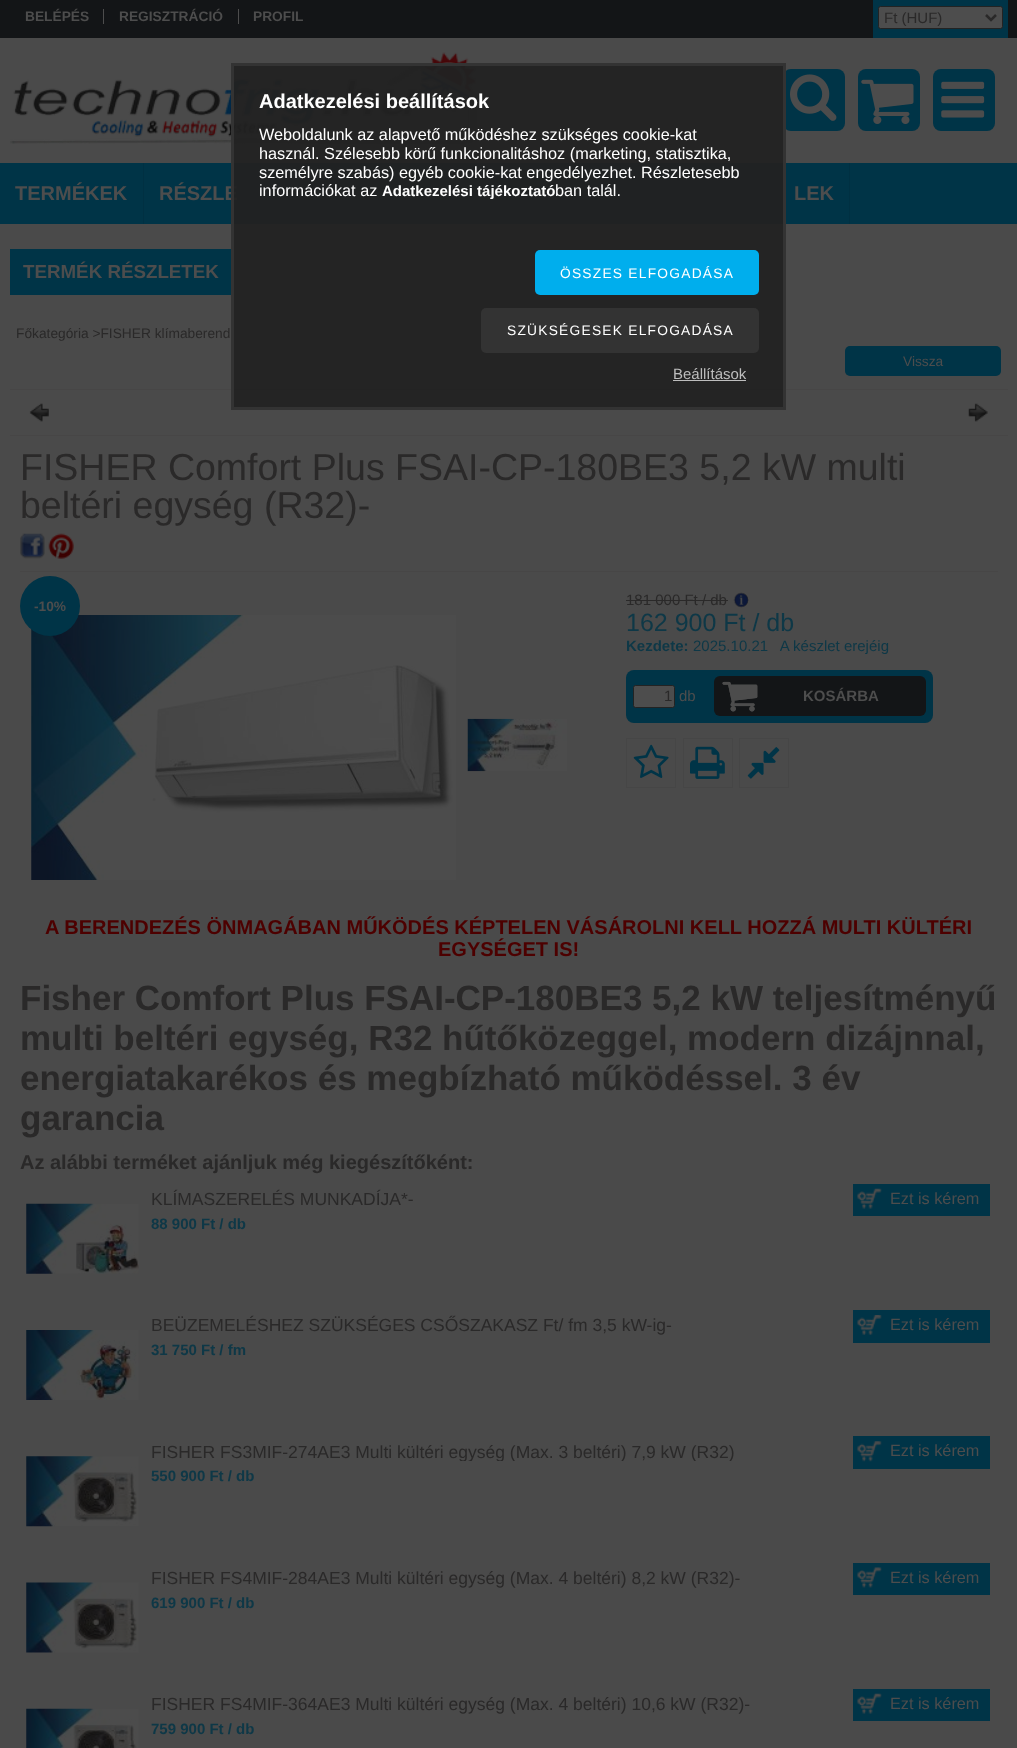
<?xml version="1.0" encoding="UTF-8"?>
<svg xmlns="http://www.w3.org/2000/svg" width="1017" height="1748">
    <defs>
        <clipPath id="clip1"><rect x="151" y="1441" width="684" height="20"/></clipPath>
    </defs>
    <rect width="100%" height="100%" fill="#4A4A4A"/>
    <rect x="0" y="0" width="1017" height="38" fill="#131517"/>
    <text x="25" y="21" font-family="Liberation Sans" font-size="13.75" font-weight="700" fill="#4D4D4D">BELÉPÉS</text>
    <rect x="103" y="9" width="1" height="15" fill="#4D4D4D"/>
    <text x="119" y="21" font-family="Liberation Sans" font-size="13.75" font-weight="700" fill="#4D4D4D">REGISZTRÁCIÓ</text>
    <rect x="238" y="9" width="1" height="15" fill="#4D4D4D"/>
    <text x="253" y="21" font-family="Liberation Sans" font-size="13.75" font-weight="700" fill="#4D4D4D">PROFIL</text>
    <rect x="873" y="0" width="135" height="38" fill="#003447"/>
    <rect x="878.5" y="6.5" width="124" height="22" rx="2" fill="#4D4D4D" stroke="#232323"/>
    <path d="M 986 15 L 991 20 L 996 15" fill="none" stroke="#2A2929" stroke-width="2.5"/>
    <text x="884" y="23" font-family="Liberation Sans" font-size="15" fill="#2A2929">Ft (HUF)</text>
    <image x="10" y="52" width="475" height="92" href="img_01.png"/>
    <rect x="783" y="69" width="62" height="62" rx="8" fill="#003447"/>
    <image x="790" y="74" width="47" height="47" href="img_02.png"/>
    <rect x="858" y="69" width="62" height="62" rx="8" fill="#003447"/>
    <image x="861" y="79" width="53" height="45" href="img_03.png"/>
    <rect x="933" y="69" width="62" height="62" rx="8" fill="#003447"/>
    <image x="941" y="81" width="44" height="37" href="img_04.png"/>
    <rect x="0" y="163" width="1017" height="61" fill="#003447"/>
    <rect x="143" y="163" width="1" height="61" fill="#000000" fill-opacity="0.07"/>
    <text x="15" y="200" font-family="Liberation Sans" font-size="20" font-weight="700" fill="#4D4D4D">TERMÉKEK</text>
    <rect x="394" y="163" width="1" height="61" fill="#000000" fill-opacity="0.07"/>
    <text x="159" y="200" font-family="Liberation Sans" font-size="20" font-weight="700" fill="#4D4D4D">RÉSZLE</text>
    <rect x="569" y="163" width="1" height="61" fill="#000000" fill-opacity="0.07"/>
    <rect x="849" y="163" width="1" height="61" fill="#000000" fill-opacity="0.07"/>
    <text x="794" y="200" font-family="Liberation Sans" font-size="20" font-weight="700" fill="#4D4D4D">LEK</text>
    <rect x="10" y="249" width="221" height="46" fill="#003447"/>
    <text x="23" y="278" font-family="Liberation Sans" font-size="18.75" font-weight="700" fill="#4D4D4D">TERMÉK RÉSZLETEK</text>
    <text x="16" y="338" font-family="Liberation Sans" font-size="13.75" fill="#2A2929">Főkategória &gt;FISHER klímaberend</text>
    <rect x="845" y="346" width="156" height="30" rx="5" fill="#003447"/>
    <text x="903" y="366" font-family="Liberation Sans" font-size="13.75" fill="#4D4D4D">Vissza</text>
    <rect x="10" y="389" width="998" height="1" fill="#474646"/>
    <image x="29" y="403" width="20" height="19" href="img_05.png"/>
    <image x="968" y="403" width="20" height="19" href="img_06.png"/>
    <rect x="10" y="435" width="998" height="1" fill="#474646"/>
    <rect x="20" y="571" width="978" height="1" fill="#474646"/>
    <text font-family="Liberation Sans" font-size="37.5" fill="#2A2929">
        <tspan x="20" y="480">FISHER Comfort Plus FSAI-CP-180BE3 5,2 kW multi</tspan>
        <tspan x="20" y="518">beltéri egység (R32)-</tspan>
    </text>
    <image x="20" y="533" width="25" height="26" href="img_07.png"/>
    <image x="48" y="533" width="26" height="26" href="img_08.png"/>
    <image x="31" y="615" width="425" height="265" href="img_09.png"/>
    <circle cx="50" cy="606" r="30" fill="#003447"/>
    <text x="34" y="611" font-family="Liberation Sans" font-size="13.75" font-weight="700" fill="#4D4D4D">-10%</text>
    <image x="467" y="718" width="100" height="54" href="img_10.png"/>
    <text x="626" y="605" font-family="Liberation Sans" font-size="15" fill="#2A2929">181 000 Ft / db</text>
    <rect x="626" y="600" width="102" height="1" fill="#2A2929"/>
    <image x="733" y="592" width="16" height="16" href="img_11.png"/>
    <text x="626" y="631" font-family="Liberation Sans" font-size="25" fill="#0E3847">162 900 Ft / db</text>
    <text x="626" y="651" font-family="Liberation Sans" font-size="15" font-weight="700" fill="#0E3847">Kezdete:</text>
    <text x="693" y="651" font-family="Liberation Sans" font-size="15" fill="#0E3847" xml:space="preserve">2025.10.21   A készlet erejéig</text>
    <rect x="626" y="670" width="307" height="53" rx="8" fill="#003447"/>
    <rect x="633.5" y="685.5" width="41" height="22" rx="2" fill="#4D4D4D" stroke="#232323"/>
    <text x="664" y="701" font-family="Liberation Sans" font-size="15" fill="#2A2929">1</text>
    <text x="679" y="701" font-family="Liberation Sans" font-size="15" fill="#4D4D4D">db</text>
    <rect x="714" y="676" width="212" height="40" rx="6" fill="#131517"/>
    <image x="722" y="681" width="36" height="31" href="img_12.png"/>
    <image x="722" y="681" width="36" height="31" href="img_13.png"/>
    <text x="803" y="701" font-family="Liberation Sans" font-size="15" font-weight="700" fill="#4D4D4D">KOSÁRBA</text>
    <rect x="626.5" y="738.5" width="49" height="49" fill="none" stroke="#464646"/>
    <image x="633" y="744" width="36" height="34" href="img_14.png"/>
    <rect x="683.5" y="738.5" width="49" height="49" fill="none" stroke="#464646"/>
    <image x="690" y="746" width="35" height="33" href="img_15.png"/>
    <rect x="739.5" y="738.5" width="49" height="49" fill="none" stroke="#464646"/>
    <image x="747" y="747" width="33" height="32" href="img_16.png"/>
    <text x="45" y="934" font-family="Liberation Sans" font-size="20" font-weight="700" fill="#4D0000">A BERENDEZÉS ÖNMAGÁBAN MŰKÖDÉS KÉPTELEN VÁSÁROLNI KELL HOZZÁ MULTI KÜLTÉRI</text>
    <text x="438" y="956" font-family="Liberation Sans" font-size="20" font-weight="700" fill="#4D0000">EGYSÉGET IS!</text>
    <text font-family="Liberation Sans" font-size="35" font-weight="700" fill="#2A2929">
        <tspan x="20" y="1010">Fisher Comfort Plus FSAI-CP-180BE3 5,2 kW teljesítményű</tspan>
        <tspan x="20" y="1050">multi beltéri egység, R32 hűtőközeggel, modern dizájnnal,</tspan>
        <tspan x="20" y="1090">energiatakarékos és megbízható működéssel. 3 év</tspan>
        <tspan x="20" y="1130">garancia</tspan>
    </text>
    <text x="20" y="1169" font-family="Liberation Sans" font-size="20" font-weight="700" fill="#2A2929">Az alábbi terméket ajánljuk még kiegészítőként:</text>
    <image x="26" y="1203" width="113" height="71" href="img_17.png"/>
    <text x="151" y="1205" font-family="Liberation Sans" font-size="17.5" fill="#2A2929">KLÍMASZERELÉS MUNKADÍJA*-</text>
    <text x="151" y="1229" font-family="Liberation Sans" font-size="15" font-weight="700" fill="#0E3847">88 900 Ft / db</text>
    <rect x="853" y="1184" width="137" height="32" fill="#003447"/>
    <image x="857" y="1188" width="25" height="21" href="img_18.png"/>
    <text x="890" y="1204" font-family="Liberation Sans" font-size="16.25" fill="#4D4D4D">Ezt is kérem</text>
    <image x="26" y="1330" width="113" height="70" href="img_19.png"/>
    <text x="151" y="1331" font-family="Liberation Sans" font-size="17.5" fill="#2A2929">BEÜZEMELÉSHEZ SZÜKSÉGES CSŐSZAKASZ Ft/ fm 3,5 kW-ig-</text>
    <text x="151" y="1355" font-family="Liberation Sans" font-size="15" font-weight="700" fill="#0E3847">31 750 Ft / fm</text>
    <rect x="853" y="1310" width="137" height="33" fill="#003447"/>
    <image x="857" y="1315" width="25" height="20" href="img_20.png"/>
    <text x="890" y="1330" font-family="Liberation Sans" font-size="16.25" fill="#4D4D4D">Ezt is kérem</text>
    <image x="26" y="1456" width="113" height="71" href="img_21.png"/>
    <g clip-path="url(#clip1)">
        <text x="151" y="1458" font-family="Liberation Sans" font-size="17.5" fill="#2A2929">FISHER FS3MIF-274AE3 Multi kültéri egység (Max. 3 beltéri) 7,9 kW (R32)</text>
    </g>
    <text x="151" y="1481" font-family="Liberation Sans" font-size="15" font-weight="700" fill="#0E3847">550 900 Ft / db</text>
    <rect x="853" y="1436" width="137" height="33" fill="#003447"/>
    <image x="857" y="1441" width="25" height="21" href="img_22.png"/>
    <text x="890" y="1456" font-family="Liberation Sans" font-size="16.25" fill="#4D4D4D">Ezt is kérem</text>
    <image x="26" y="1582" width="113" height="71" href="img_23.png"/>
    <text x="151" y="1584" font-family="Liberation Sans" font-size="17.5" fill="#2A2929">FISHER FS4MIF-284AE3 Multi kültéri egység (Max. 4 beltéri) 8,2 kW (R32)-</text>
    <text x="151" y="1608" font-family="Liberation Sans" font-size="15" font-weight="700" fill="#0E3847">619 900 Ft / db</text>
    <rect x="853" y="1563" width="137" height="32" fill="#003447"/>
    <image x="857" y="1567" width="25" height="21" href="img_24.png"/>
    <text x="890" y="1583" font-family="Liberation Sans" font-size="16.25" fill="#4D4D4D">Ezt is kérem</text>
    <image x="26" y="1708" width="113" height="40" href="img_25.png"/>
    <text x="151" y="1710" font-family="Liberation Sans" font-size="17.5" fill="#2A2929">FISHER FS4MIF-364AE3 Multi kültéri egység (Max. 4 beltéri) 10,6 kW (R32)-</text>
    <text x="151" y="1734" font-family="Liberation Sans" font-size="15" font-weight="700" fill="#0E3847">759 900 Ft / db</text>
    <rect x="853" y="1689" width="137" height="32" fill="#003447"/>
    <image x="857" y="1693" width="25" height="21" href="img_18.png"/>
    <text x="890" y="1709" font-family="Liberation Sans" font-size="16.25" fill="#4D4D4D">Ezt is kérem</text>
    <rect x="232.5" y="64.5" width="552" height="344" fill="#222222" fill-opacity="0.95" stroke="#333333" stroke-width="3"/>
    <text x="259" y="108" font-family="Liberation Sans" font-size="20" font-weight="700" fill="#FFFFFF">Adatkezelési beállítások</text>
    <text font-family="Liberation Sans" font-size="16.25" fill="#FFFFFF">
        <tspan x="259" y="140">Weboldalunk az alapvető működéshez szükséges cookie-kat</tspan>
        <tspan x="259" y="159">használ. Szélesebb körű funkcionalitáshoz (marketing, statisztika,</tspan>
        <tspan x="259" y="178">személyre szabás) egyéb cookie-kat engedélyezhet. Részletesebb</tspan>
        <tspan x="259" y="196">információkat az</tspan>
    </text>
    <text x="382" y="196" font-family="Liberation Sans" font-size="15" font-weight="700" fill="#FFFFFF">Adatkezelési tájékoztató</text>
    <text x="555" y="196" font-family="Liberation Sans" font-size="16.25" fill="#FFFFFF">ban talál.</text>
    <rect x="535" y="250" width="224" height="45" rx="5" fill="#00AEED"/>
    <text x="560" y="278" font-family="Liberation Sans" font-size="13.75" letter-spacing="1.25" fill="#FFFFFF">ÖSSZES ELFOGADÁSA</text>
    <rect x="481" y="308" width="278" height="45" rx="5" fill="#333333"/>
    <text x="507" y="335" font-family="Liberation Sans" font-size="13.75" letter-spacing="1.25" fill="#FFFFFF">SZÜKSÉGESEK ELFOGADÁSA</text>
    <text x="673" y="379" font-family="Liberation Sans" font-size="15" fill="#BDBDBD">Beállítások</text>
    <rect x="673" y="380" width="73" height="1" fill="#BDBDBD"/>
</svg>
